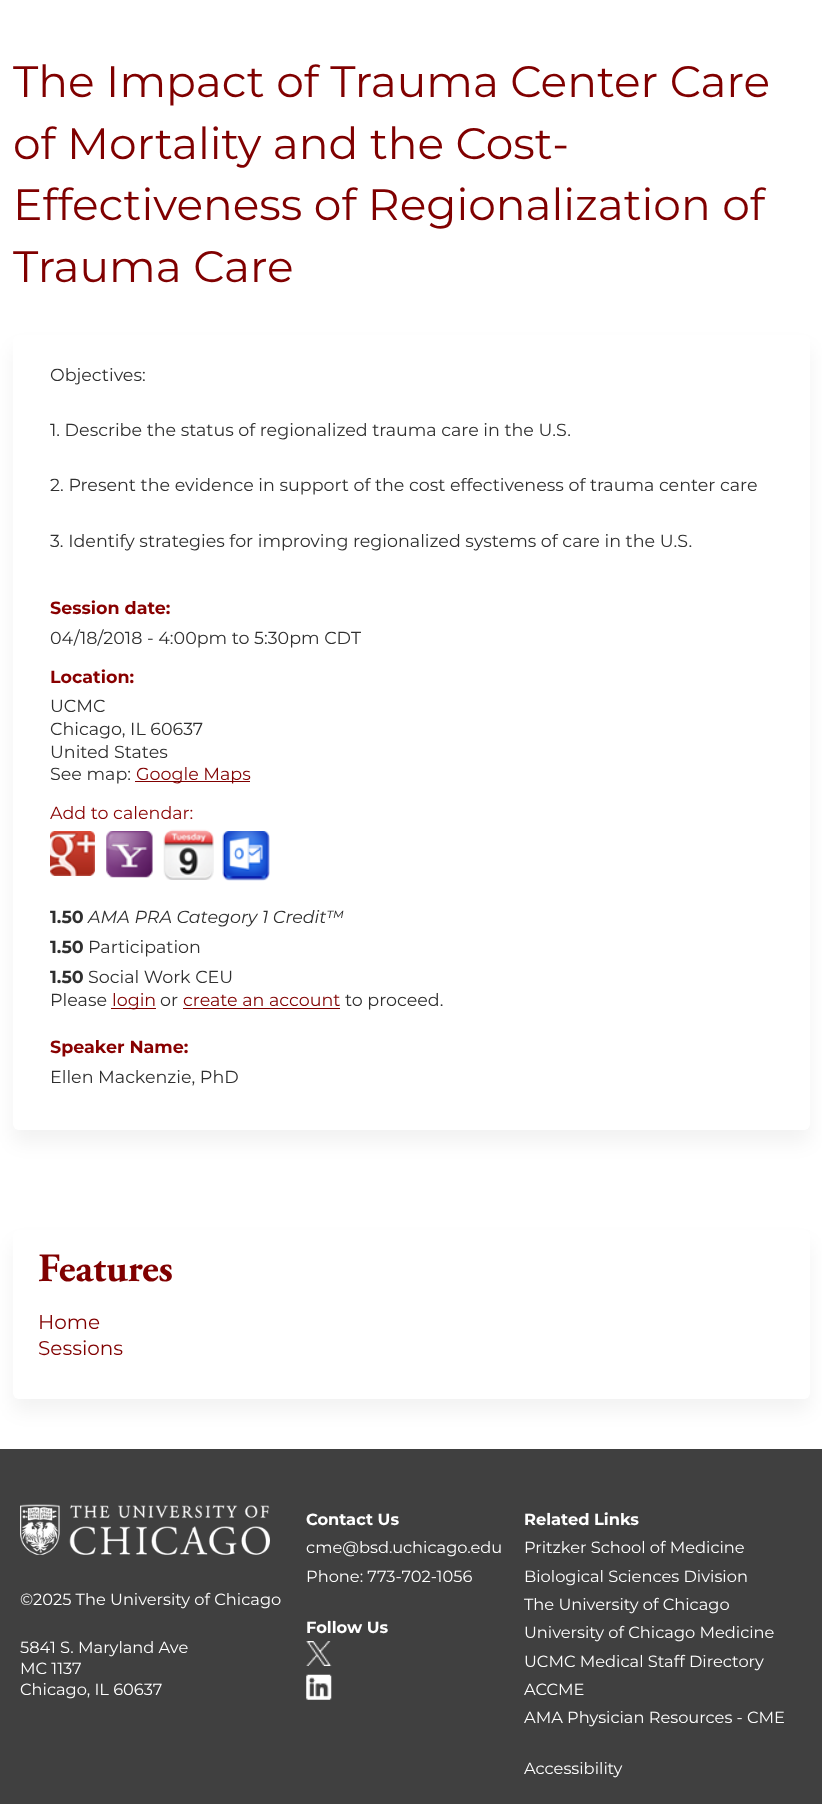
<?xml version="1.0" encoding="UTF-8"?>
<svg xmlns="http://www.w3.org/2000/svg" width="822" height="1804">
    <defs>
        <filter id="blur1" x="-50%" y="-200%" width="200%" height="500%"><feGaussianBlur stdDeviation="9.5"/></filter>
    </defs>
    <rect width="100%" height="100%" fill="#FFFFFF"/>
    <text font-family="Montserrat" font-size="44" fill="#800000">
        <tspan x="13" y="97">The Impact of Trauma Center Care</tspan>
        <tspan x="13" y="159">of Mortality and the Cost-</tspan>
        <tspan x="13" y="220">Effectiveness of Regionalization of</tspan>
        <tspan x="13" y="282">Trauma Care</tspan>
    </text>
    <rect x="13" y="348" width="797" height="795" rx="6" fill="#000000" fill-opacity="0.05" filter="url(#blur1)"/>
    <rect x="13" y="335" width="797" height="795" rx="6" fill="#FFFFFF"/>
    <text x="50" y="381" font-family="Montserrat" font-size="17.5" fill="#2F2F2F">Objectives:</text>
    <text x="50" y="436" font-family="Montserrat" font-size="17.5" fill="#2F2F2F">1. Describe the status of regionalized trauma care in the U.S.</text>
    <text x="50" y="491" font-family="Montserrat" font-size="17.5" fill="#2F2F2F">2. Present the evidence in support of the cost effectiveness of trauma center care</text>
    <text x="50" y="547" font-family="Montserrat" font-size="17.5" fill="#2F2F2F">3. Identify strategies for improving regionalized systems of care in the U.S.</text>
    <text x="50" y="614" font-family="Montserrat" font-size="17.5" font-weight="700" fill="#880000">Session date:</text>
    <text x="50" y="644" font-family="Montserrat" font-size="17.5" fill="#2F2F2F">04/18/2018 - 4:00pm to 5:30pm CDT</text>
    <text x="50" y="683" font-family="Montserrat" font-size="17.5" font-weight="700" fill="#880000">Location:</text>
    <text font-family="Montserrat" font-size="17.5" fill="#2F2F2F">
        <tspan x="50" y="712">UCMC</tspan>
        <tspan x="50" y="735">Chicago, IL 60637</tspan>
        <tspan x="50" y="758">United States</tspan>
        <tspan x="50" y="780">See map:</tspan>
    </text>
    <rect x="135" y="781" width="115" height="1" fill="#800000"/>
    <text x="136" y="780" font-family="Montserrat" font-size="17.5" fill="#800000">Google Maps</text>
    <text x="50" y="819" font-family="Montserrat" font-size="17.5" fill="#880000">Add to calendar:</text>
    <image x="50" y="831" width="45" height="45" href="img_01.png"/>
    <image x="106" y="831" width="47" height="47" href="img_02.png"/>
    <image x="163" y="829" width="51" height="51" href="img_03.png"/>
    <image x="222" y="831" width="48" height="50" href="img_04.png"/>
    <text x="50" y="923" font-family="Montserrat" font-size="17.5" font-weight="700" fill="#2F2F2F">1.50</text>
    <text x="88" y="923" font-family="Montserrat" font-size="17.5" font-style="italic" fill="#2F2F2F">AMA PRA Category 1 Credit™</text>
    <text x="50" y="953" font-family="Montserrat" font-size="17.5" font-weight="700" fill="#2F2F2F">1.50</text>
    <text x="88" y="953" font-family="Montserrat" font-size="17.5" fill="#2F2F2F">Participation</text>
    <text x="50" y="983" font-family="Montserrat" font-size="17.5" font-weight="700" fill="#2F2F2F">1.50</text>
    <text x="88" y="983" font-family="Montserrat" font-size="17.5" fill="#2F2F2F">Social Work CEU</text>
    <text x="50" y="1006" font-family="Montserrat" font-size="17.5" fill="#2F2F2F">Please</text>
    <rect x="111" y="1008" width="45" height="1" fill="#800000"/>
    <text x="112" y="1006" font-family="Montserrat" font-size="17.5" fill="#800000">login</text>
    <text x="160" y="1006" font-family="Montserrat" font-size="17.5" fill="#2F2F2F">or</text>
    <text x="183" y="1006" font-family="Montserrat" font-size="17.5" fill="#800000">create an account</text>
    <rect x="183" y="1008" width="157" height="1" fill="#800000"/>
    <text x="345" y="1006" font-family="Montserrat" font-size="17.5" fill="#2F2F2F">to proceed.</text>
    <text x="50" y="1053" font-family="Montserrat" font-size="17.5" font-weight="700" fill="#880000">Speaker Name:</text>
    <text x="50" y="1083" font-family="Montserrat" font-size="17.5" fill="#2F2F2F">Ellen Mackenzie, PhD</text>
    <rect x="13" y="1243" width="797" height="168" rx="6" fill="#000000" fill-opacity="0.05" filter="url(#blur1)"/>
    <rect x="13" y="1230" width="797" height="169" rx="6" fill="#FFFFFF"/>
    <text x="38" y="1281" font-family="Adobe Garamond" font-size="40" font-weight="700" fill="#800000">Features</text>
    <text font-family="Montserrat" font-size="20" fill="#800000">
        <tspan x="38" y="1329">Home</tspan>
        <tspan x="38" y="1355">Sessions</tspan>
    </text>
    <rect x="0" y="1449" width="822" height="355" fill="#404040"/>
    <text x="306" y="1525" font-family="Montserrat" font-size="16.25" font-weight="700" fill="#FFFFFF">Contact Us</text>
    <text font-family="Montserrat" font-size="16.25" fill="#FFFFFF">
        <tspan x="306" y="1553">cme@bsd.uchicago.edu</tspan>
        <tspan x="306" y="1582">Phone: 773-702-1056</tspan>
    </text>
    <text x="306" y="1633" font-family="Montserrat" font-size="16.25" font-weight="700" fill="#FFFFFF">Follow Us</text>
    <image x="306" y="1641" width="26" height="25" href="img_05.png"/>
    <image x="306" y="1674" width="26" height="26" href="img_06.png"/>
    <text x="524" y="1525" font-family="Montserrat" font-size="16.25" font-weight="700" fill="#FFFFFF">Related Links</text>
    <text font-family="Montserrat" font-size="16.25" fill="#FFFFFF">
        <tspan x="524" y="1553">Pritzker School of Medicine</tspan>
        <tspan x="524" y="1582">Biological Sciences Division</tspan>
        <tspan x="524" y="1610">The University of Chicago</tspan>
        <tspan x="524" y="1638">University of Chicago Medicine</tspan>
        <tspan x="524" y="1667">UCMC Medical Staff Directory</tspan>
        <tspan x="524" y="1695">ACCME</tspan>
        <tspan x="524" y="1723">AMA Physician Resources - CME</tspan>
    </text>
    <text x="524" y="1774" font-family="Montserrat" font-size="16.25" fill="#FFFFFF">Accessibility</text>
    <image x="20" y="1504" width="250" height="51" href="img_07.png"/>
    <text x="20" y="1605" font-family="Montserrat" font-size="16.25" fill="#FFFFFF">©2025 The University of Chicago</text>
    <text font-family="Montserrat" font-size="16.25" fill="#FFFFFF">
        <tspan x="20" y="1653">5841 S. Maryland Ave</tspan>
        <tspan x="20" y="1674">MC 1137</tspan>
        <tspan x="20" y="1695">Chicago, IL 60637</tspan>
    </text>
</svg>
